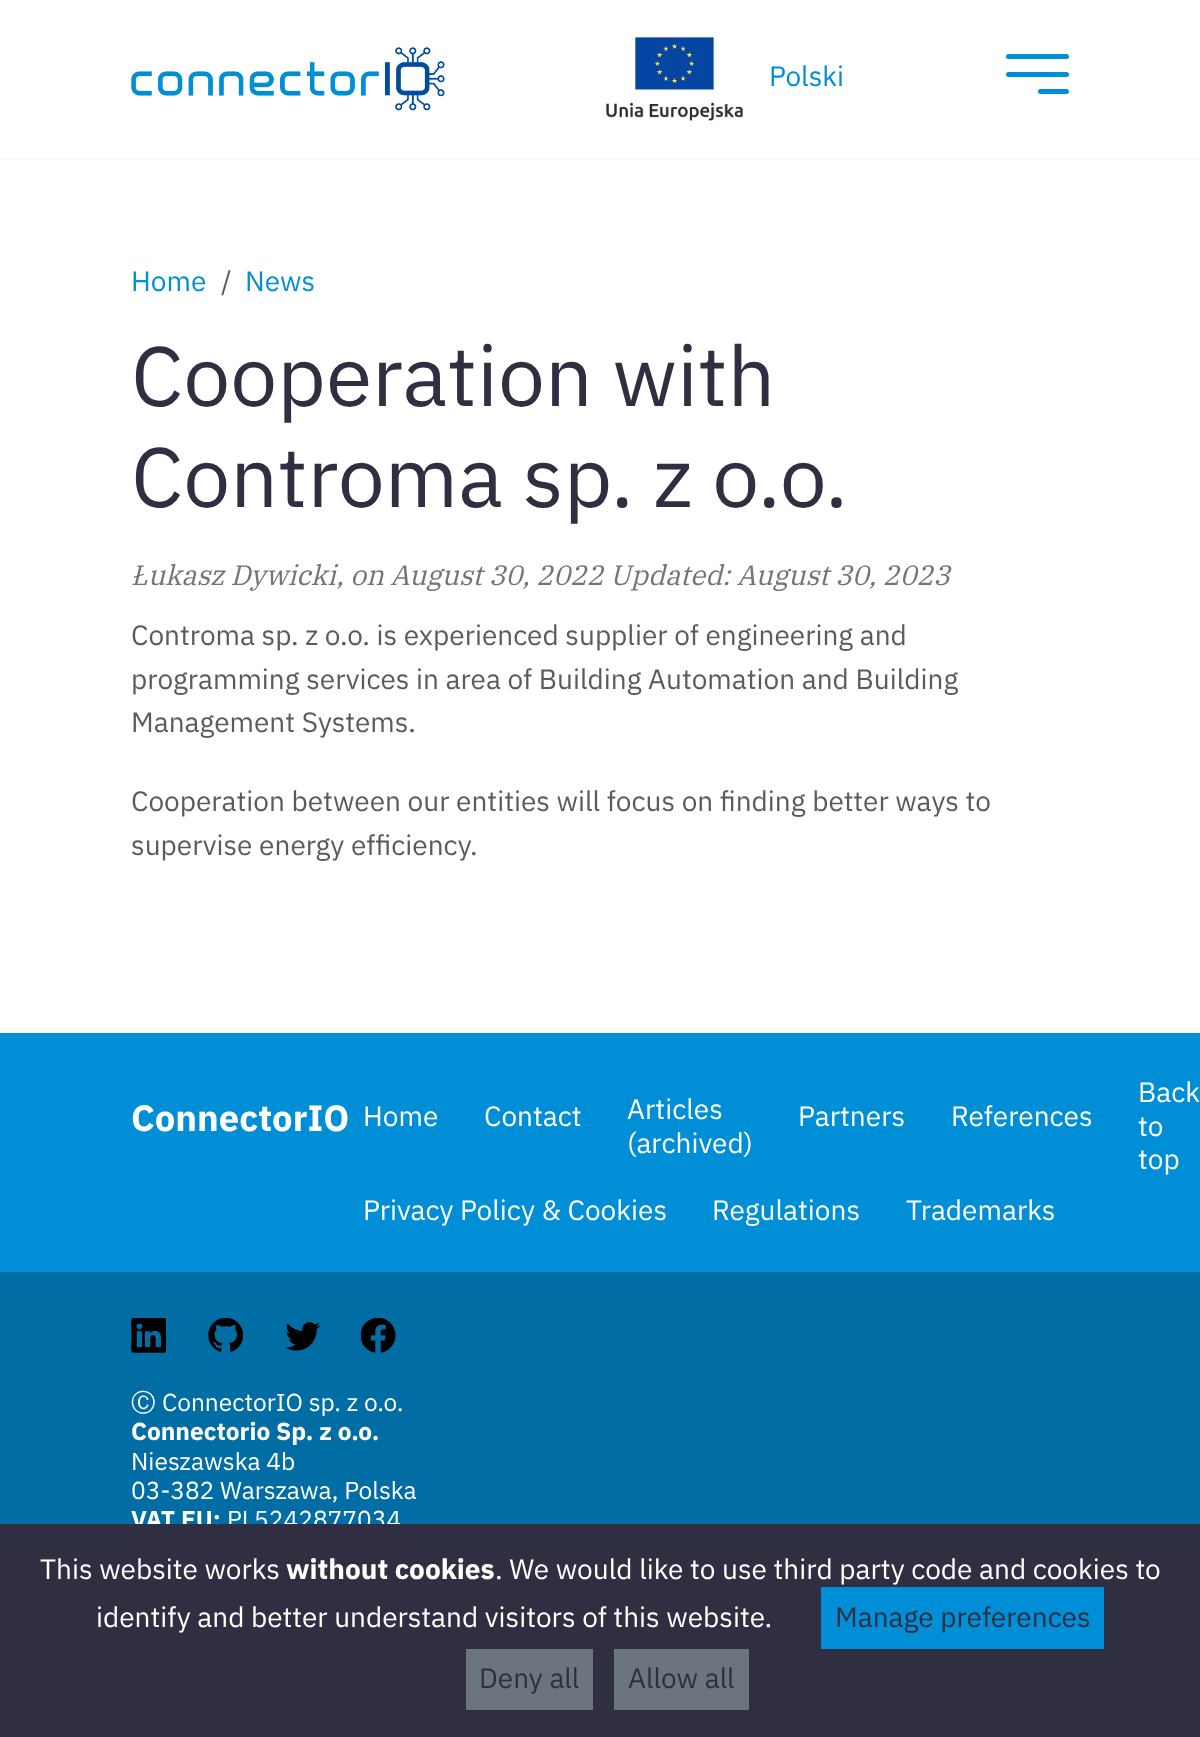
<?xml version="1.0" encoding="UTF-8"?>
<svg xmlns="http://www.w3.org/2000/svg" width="1200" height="1737">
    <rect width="100%" height="100%" fill="#FFFFFF"/>
    <rect x="0" y="158" width="1200" height="2" fill="#F6F7FF"/>
    <image x="131" y="47" width="314" height="64" href="img_01.png"/>
    <image x="605" y="35" width="138" height="86" href="img_02.png"/>
    <text x="769" y="86" font-family="IBM Plex Sans" font-size="28" fill="#008FD7">Polski</text>
    <rect x="1006" y="54" width="63" height="5" rx="2.5" fill="#008FD7"/>
    <rect x="1006" y="72" width="63" height="5" rx="2.5" fill="#008FD7"/>
    <rect x="1038" y="89" width="31" height="5" rx="2.5" fill="#008FD7"/>
    <text x="131" y="291" font-family="IBM Plex Sans" font-size="28" fill="#008FD7">Home</text>
    <text x="221" y="291" font-family="IBM Plex Sans" font-size="28" fill="#595C5F">/</text>
    <text x="245" y="291" font-family="IBM Plex Sans" font-size="28" fill="#008FD7">News</text>
    <text font-family="IBM Plex Sans" font-size="84" fill="#2F2F41">
        <tspan x="131" y="406">Cooperation with</tspan>
        <tspan x="131" y="507">Controma sp. z o.o.</tspan>
    </text>
    <text x="131" y="585" font-family="IBM Plex Serif" font-size="28" font-style="italic" fill="#767373">Łukasz Dywicki, on August 30, 2022 Updated: August 30, 2023</text>
    <text font-family="IBM Plex Sans" font-size="28" fill="#595C5F">
        <tspan x="131" y="645">Controma sp. z o.o. is experienced supplier of engineering and</tspan>
        <tspan x="131" y="689">programming services in area of Building Automation and Building</tspan>
        <tspan x="131" y="732">Management Systems.</tspan>
    </text>
    <text font-family="IBM Plex Sans" font-size="28" fill="#595C5F">
        <tspan x="131" y="811">Cooperation between our entities will focus on finding better ways to</tspan>
        <tspan x="131" y="855">supervise energy efficiency.</tspan>
    </text>
    <rect x="0" y="1033" width="1200" height="239" fill="#008FD7"/>
    <text x="131" y="1131" font-family="IBM Plex Sans" font-size="36.5" font-weight="700" fill="#FFFFFF">ConnectorIO</text>
    <text x="363" y="1126" font-family="IBM Plex Sans" font-size="28" fill="#FFFFFF">Home</text>
    <text x="484" y="1126" font-family="IBM Plex Sans" font-size="28" fill="#FFFFFF">Contact</text>
    <text font-family="IBM Plex Sans" font-size="28" fill="#FFFFFF">
        <tspan x="627" y="1119">Articles</tspan>
        <tspan x="627" y="1153">(archived)</tspan>
    </text>
    <text x="798" y="1126" font-family="IBM Plex Sans" font-size="28" fill="#FFFFFF">Partners</text>
    <text x="951" y="1126" font-family="IBM Plex Sans" font-size="28" fill="#FFFFFF">References</text>
    <text font-family="IBM Plex Sans" font-size="28" fill="#FFFFFF">
        <tspan x="1138" y="1102">Back</tspan>
        <tspan x="1138" y="1136">to</tspan>
        <tspan x="1138" y="1169">top</tspan>
    </text>
    <text x="363" y="1220" font-family="IBM Plex Sans" font-size="28" fill="#FFFFFF">Privacy Policy &amp; Cookies</text>
    <text x="712" y="1220" font-family="IBM Plex Sans" font-size="28" fill="#FFFFFF">Regulations</text>
    <text x="906" y="1220" font-family="IBM Plex Sans" font-size="28" fill="#FFFFFF">Trademarks</text>
    <rect x="0" y="1272" width="1200" height="252" fill="#006DA4"/>
    <image x="131" y="1318" width="35" height="35" href="img_03.png"/>
    <image x="208" y="1318" width="35" height="34" href="img_04.png"/>
    <image x="285" y="1322" width="35" height="29" href="img_05.png"/>
    <image x="361" y="1318" width="35" height="35" href="img_06.png"/>
    <text x="131" y="1411" font-family="WenQuanYi Zen Hei" font-size="24.5" font-weight="500" fill="#FFFFFF">Ⓒ</text>
    <text x="162" y="1411" font-family="IBM Plex Sans" font-size="24.5" fill="#FFFFFF">ConnectorIO sp. z o.o.</text>
    <text x="131" y="1440" font-family="IBM Plex Sans" font-size="24.5" font-weight="700" fill="#FFFFFF">Connectorio Sp. z o.o.</text>
    <text font-family="IBM Plex Sans" font-size="24.5" fill="#FFFFFF">
        <tspan x="131" y="1470">Nieszawska 4b</tspan>
        <tspan x="131" y="1499">03-382 Warszawa, Polska</tspan>
    </text>
    <text x="131" y="1528" font-family="IBM Plex Sans" font-size="24.5" font-weight="700" fill="#FFFFFF">VAT EU:</text>
    <text x="227" y="1528" font-family="IBM Plex Sans" font-size="24.5" fill="#FFFFFF">PL5242877034</text>
    <rect x="0" y="1524" width="1200" height="213" fill="#2F2F41"/>
    <text x="40" y="1579" font-family="IBM Plex Sans" font-size="28" fill="#FFFFFF">This website works</text>
    <text x="286" y="1579" font-family="IBM Plex Sans" font-size="28" font-weight="700" fill="#FFFFFF">without cookies</text>
    <text x="495" y="1579" font-family="IBM Plex Sans" font-size="28" fill="#FFFFFF">. We would like to use third party code and cookies to</text>
    <text x="96" y="1627" font-family="IBM Plex Sans" font-size="28" fill="#FFFFFF">identify and better understand visitors of this website.</text>
    <rect x="821" y="1587" width="283" height="62" fill="#008FD7"/>
    <text x="835" y="1627" font-family="IBM Plex Sans" font-size="28" fill="#2F2F41">Manage preferences</text>
    <rect x="466" y="1649" width="127" height="61" fill="#6C757D"/>
    <text x="479" y="1688" font-family="IBM Plex Sans" font-size="28" fill="#2F2F41">Deny all</text>
    <rect x="614" y="1649" width="135" height="61" fill="#6C757D"/>
    <text x="628" y="1688" font-family="IBM Plex Sans" font-size="28" fill="#2F2F41">Allow all</text>
</svg>
